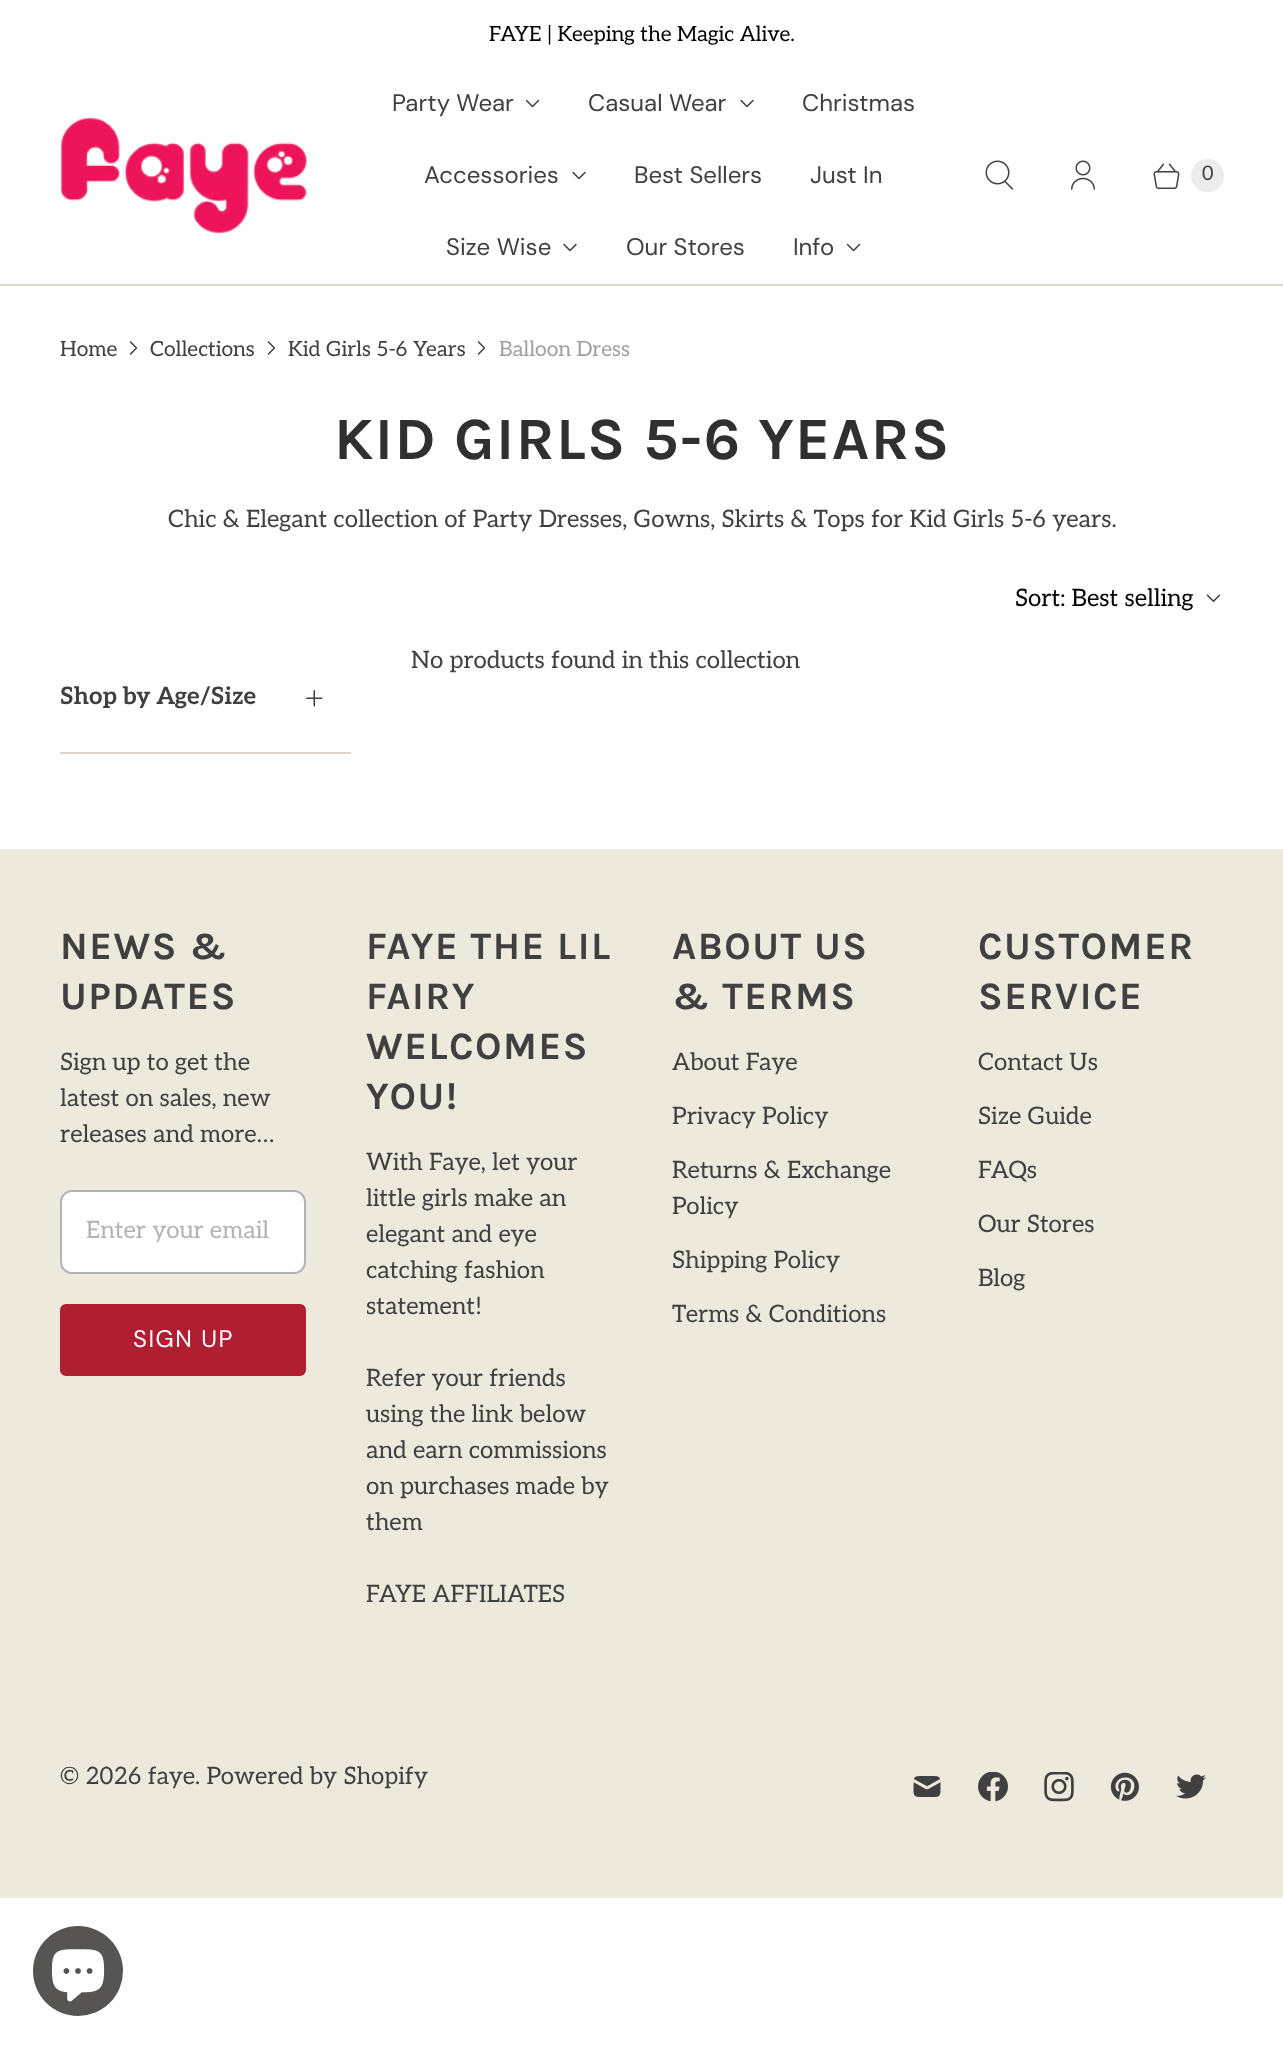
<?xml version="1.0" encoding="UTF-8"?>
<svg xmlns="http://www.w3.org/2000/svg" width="1283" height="2047">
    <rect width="100%" height="100%" fill="#FFFFFF"/>
    <text x="489" y="41" font-family="Aleo" font-size="21" fill="#000000">FAYE | Keeping the Magic Alive.</text>
    <rect x="0" y="284" width="1283" height="2" fill="#DED6C7"/>
    <image x="60" y="117" width="248" height="117" href="img_01.png"/>
    <text x="392" y="111" font-family="DM Sans" font-size="24" fill="#404040">Party Wear</text>
    <image x="525" y="99" width="15" height="9" href="img_02.png"/>
    <text x="588" y="111" font-family="DM Sans" font-size="24" fill="#404040">Casual Wear</text>
    <image x="740" y="99" width="14" height="9" href="img_03.png"/>
    <text x="802" y="111" font-family="DM Sans" font-size="24" fill="#404040">Christmas</text>
    <text x="424" y="183" font-family="DM Sans" font-size="24" fill="#404040">Accessories</text>
    <image x="572" y="171" width="14" height="9" href="img_03.png"/>
    <text x="634" y="183" font-family="DM Sans" font-size="24" fill="#404040">Best Sellers</text>
    <text x="810" y="183" font-family="DM Sans" font-size="24" fill="#404040">Just In</text>
    <text x="446" y="255" font-family="DM Sans" font-size="24" fill="#404040">Size Wise</text>
    <image x="563" y="243" width="14" height="9" href="img_03.png"/>
    <text x="626" y="255" font-family="DM Sans" font-size="24" fill="#404040">Our Stores</text>
    <text x="793" y="255" font-family="DM Sans" font-size="24" fill="#404040">Info</text>
    <image x="846" y="243" width="15" height="9" href="img_02.png"/>
    <image x="985" y="160" width="29" height="30" href="img_04.png"/>
    <image x="1071" y="160" width="24" height="30" href="img_05.png"/>
    <image x="1153" y="163" width="27" height="26" href="img_06.png"/>
    <circle cx="1207.5" cy="175.5" r="16.5" fill="#ECECEC"/>
    <text x="1202" y="180" font-family="Aleo" font-size="20" fill="#404040">0</text>
    <text x="60" y="356" font-family="Aleo" font-size="21" fill="#404040">Home</text>
    <image x="129" y="341" width="9" height="14" href="img_07.png"/>
    <text x="150" y="356" font-family="Aleo" font-size="21" fill="#404040">Collections</text>
    <image x="267" y="341" width="9" height="14" href="img_07.png"/>
    <text x="288" y="356" font-family="Aleo" font-size="21" fill="#404040">Kid Girls 5-6 Years</text>
    <image x="477" y="341" width="9" height="14" href="img_07.png"/>
    <text x="499" y="356" font-family="Aleo" font-size="21" fill="#A0A0A0">Balloon Dress</text>
    <text x="334" y="459" font-family="Karla" font-size="60" font-weight="700" letter-spacing="1.5" fill="#303030">KID GIRLS 5-6 YEARS</text>
    <text x="168" y="527" font-family="Aleo" font-size="24" fill="#404040">Chic &amp; Elegant collection of Party Dresses, Gowns, Skirts &amp; Tops for Kid Girls 5-6 years.</text>
    <text x="1015" y="606" font-family="Aleo" font-size="24" fill="#000000">Sort: Best selling</text>
    <image x="1206" y="594" width="14" height="8" href="img_08.png"/>
    <text x="411" y="668" font-family="Aleo" font-size="24" fill="#404040">No products found in this collection</text>
    <rect x="60" y="752" width="291" height="2" fill="#DED6C7"/>
    <text x="60" y="704" font-family="Aleo" font-size="24" font-weight="700" fill="#404040">Shop by Age/Size</text>
    <image x="306" y="690" width="17" height="17" href="img_09.png"/>
    <rect x="0" y="849" width="1283" height="1049" fill="#EDE9DD"/>
    <text font-family="Karla" font-size="38.75" font-weight="700" letter-spacing="1.5" fill="#404040">
        <tspan x="60" y="959">NEWS &amp;</tspan>
        <tspan x="60" y="1009">UPDATES</tspan>
    </text>
    <text font-family="Aleo" font-size="24" fill="#404040">
        <tspan x="60" y="1070">Sign up to get the</tspan>
        <tspan x="60" y="1106">latest on sales, new</tspan>
        <tspan x="60" y="1142">releases and more…</tspan>
    </text>
    <rect x="60" y="1190" width="246" height="84" rx="12" fill="#FFFFFF"/>
    <rect x="61" y="1191" width="244" height="82" rx="11" fill="none" stroke="#404040" stroke-opacity="0.4" stroke-width="2"/>
    <text x="86" y="1238" font-family="Aleo" font-size="24" fill="#B3B3B3">Enter your email</text>
    <rect x="61" y="1305" width="244" height="70" rx="5" fill="#AF1F31" stroke="#AF1F31" stroke-width="2"/>
    <text x="133" y="1347" font-family="DM Sans" font-size="24" letter-spacing="1.5" fill="#FFFFFF">SIGN UP</text>
    <text font-family="Karla" font-size="38.75" font-weight="700" letter-spacing="1.5" fill="#404040">
        <tspan x="366" y="959">FAYE THE LIL</tspan>
        <tspan x="366" y="1009">FAIRY</tspan>
        <tspan x="366" y="1059">WELCOMES</tspan>
        <tspan x="366" y="1109">YOU!</tspan>
    </text>
    <text font-family="Aleo" font-size="24" fill="#404040">
        <tspan x="366" y="1170">With Faye, let your</tspan>
        <tspan x="366" y="1206">little girls make an</tspan>
        <tspan x="366" y="1242">elegant and eye</tspan>
        <tspan x="366" y="1278">catching fashion</tspan>
        <tspan x="366" y="1314">statement!</tspan>
    </text>
    <text font-family="Aleo" font-size="24" fill="#404040">
        <tspan x="366" y="1386">Refer your friends</tspan>
        <tspan x="366" y="1422">using the link below</tspan>
        <tspan x="366" y="1458">and earn commissions</tspan>
        <tspan x="366" y="1494">on purchases made by</tspan>
        <tspan x="366" y="1530">them</tspan>
    </text>
    <text x="366" y="1602" font-family="Aleo" font-size="24" fill="#404040">FAYE AFFILIATES</text>
    <text font-family="Karla" font-size="38.75" font-weight="700" letter-spacing="1.5" fill="#404040">
        <tspan x="672" y="959">ABOUT US</tspan>
        <tspan x="672" y="1009">&amp; TERMS</tspan>
    </text>
    <text x="672" y="1070" font-family="Aleo" font-size="24" fill="#404040">About Faye</text>
    <text x="672" y="1124" font-family="Aleo" font-size="24" fill="#404040">Privacy Policy</text>
    <text font-family="Aleo" font-size="24" fill="#404040">
        <tspan x="672" y="1178">Returns &amp; Exchange</tspan>
        <tspan x="672" y="1214">Policy</tspan>
    </text>
    <text x="672" y="1268" font-family="Aleo" font-size="24" fill="#404040">Shipping Policy</text>
    <text x="672" y="1322" font-family="Aleo" font-size="24" fill="#404040">Terms &amp; Conditions</text>
    <text font-family="Karla" font-size="38.75" font-weight="700" letter-spacing="1.5" fill="#404040">
        <tspan x="978" y="959">CUSTOMER</tspan>
        <tspan x="978" y="1009">SERVICE</tspan>
    </text>
    <text x="978" y="1070" font-family="Aleo" font-size="24" fill="#404040">Contact Us</text>
    <text x="978" y="1124" font-family="Aleo" font-size="24" fill="#404040">Size Guide</text>
    <text x="978" y="1178" font-family="Aleo" font-size="24" fill="#404040">FAQs</text>
    <text x="978" y="1232" font-family="Aleo" font-size="24" fill="#404040">Our Stores</text>
    <text x="978" y="1286" font-family="Aleo" font-size="24" fill="#404040">Blog</text>
    <text x="60" y="1784" font-family="Aleo" font-size="24" fill="#404040">© 2026 faye. Powered by Shopify</text>
    <image x="913" y="1776" width="28" height="21" href="img_10.png"/>
    <image x="978" y="1772" width="30" height="30" href="img_11.png"/>
    <image x="1044" y="1772" width="30" height="30" href="img_12.png"/>
    <image x="1110" y="1772" width="29" height="29" href="img_13.png"/>
    <image x="1176" y="1774" width="30" height="25" href="img_14.png"/>
    <circle cx="78" cy="1971" r="45" fill="#575454"/>
    <image x="51" y="1949" width="54" height="53" href="img_15.png"/>
</svg>
